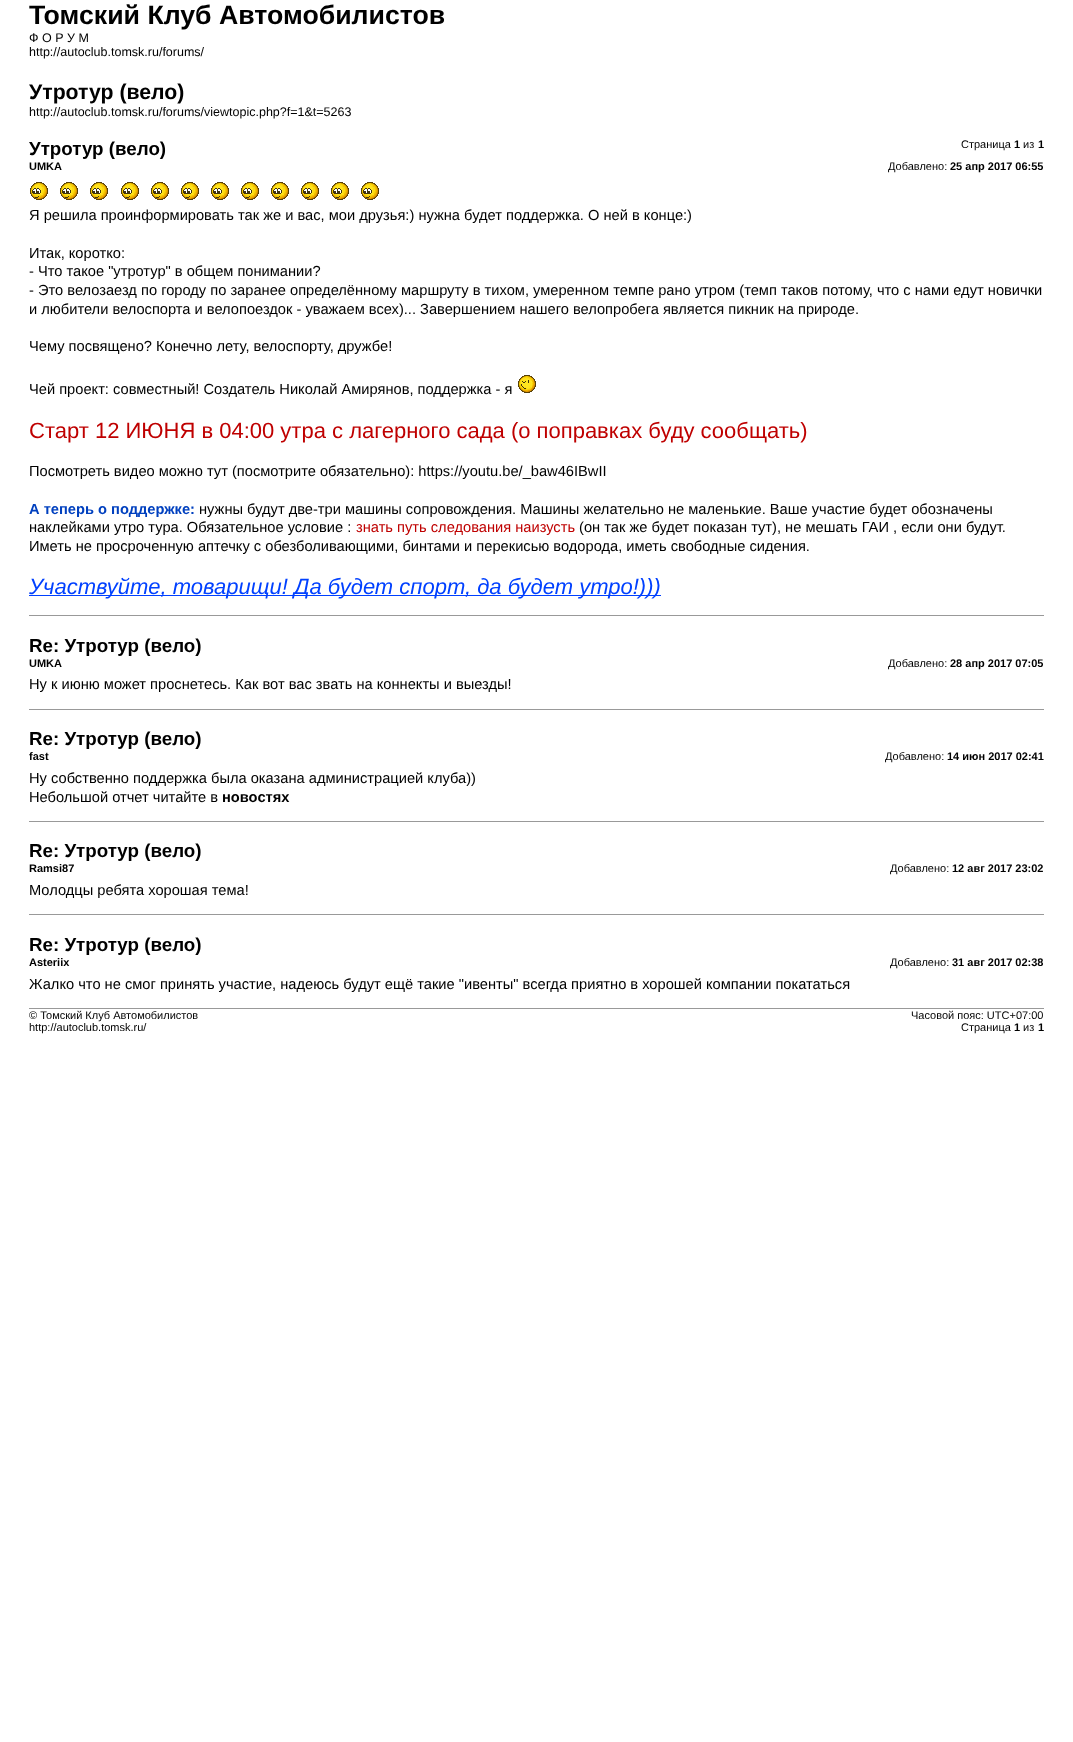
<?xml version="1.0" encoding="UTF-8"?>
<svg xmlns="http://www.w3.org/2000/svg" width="1073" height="1742">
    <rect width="100%" height="100%" fill="#FFFFFF"/>
    <text x="29" y="24" font-family="Liberation Sans" font-size="26.7" font-weight="700" fill="#000000">Томский Клуб Автомобилистов</text>
    <text font-family="Liberation Sans" font-size="12.5" fill="#000000">
        <tspan x="29" y="42">Ф О Р У М</tspan>
        <tspan x="29" y="56">http://autoclub.tomsk.ru/forums/</tspan>
    </text>
    <text x="29" y="99" font-family="Liberation Sans" font-size="21.25" font-weight="700" fill="#000000">Утротур (вело)</text>
    <text x="29" y="116" font-family="Liberation Sans" font-size="12.5" fill="#000000">http://autoclub.tomsk.ru/forums/viewtopic.php?f=1&amp;t=5263</text>
    <text x="961" y="148" font-family="Liberation Sans" font-size="11" fill="#000000">Страница</text>
    <text x="1014" y="148" font-family="Liberation Sans" font-size="11" font-weight="700" fill="#000000">1</text>
    <text x="1023" y="148" font-family="Liberation Sans" font-size="11" fill="#000000">из</text>
    <text x="1038" y="148" font-family="Liberation Sans" font-size="11" font-weight="700" fill="#000000">1</text>
    <text x="29" y="155" font-family="Liberation Sans" font-size="18.75" font-weight="700" fill="#000000">Утротур (вело)</text>
    <text x="29" y="170" font-family="Liberation Sans" font-size="11" font-weight="700" fill="#000000">UMKA</text>
    <text x="888" y="170" font-family="Liberation Sans" font-size="11" fill="#000000">Добавлено:</text>
    <text x="950" y="170" font-family="Liberation Sans" font-size="11" font-weight="700" fill="#000000">25 апр 2017 06:55</text>
    <image x="30" y="182" width="18" height="18" href="img_01.png"/>
    <image x="60" y="182" width="18" height="18" href="img_01.png"/>
    <image x="90" y="182" width="18" height="18" href="img_01.png"/>
    <image x="121" y="182" width="18" height="18" href="img_01.png"/>
    <image x="151" y="182" width="18" height="18" href="img_01.png"/>
    <image x="181" y="182" width="18" height="18" href="img_01.png"/>
    <image x="211" y="182" width="18" height="18" href="img_01.png"/>
    <image x="241" y="182" width="18" height="18" href="img_01.png"/>
    <image x="271" y="182" width="18" height="18" href="img_01.png"/>
    <image x="301" y="182" width="18" height="18" href="img_01.png"/>
    <image x="331" y="182" width="18" height="18" href="img_01.png"/>
    <image x="361" y="182" width="18" height="18" href="img_01.png"/>
    <text x="29" y="220" font-family="Liberation Sans" font-size="14.67" fill="#000000">Я решила проинформировать так же и вас, мои друзья:) нужна будет поддержка. О ней в конце:)</text>
    <text font-family="Liberation Sans" font-size="14.67" fill="#000000">
        <tspan x="29" y="258">Итак, коротко:</tspan>
        <tspan x="29" y="276">- Что такое "утротур" в общем понимании?</tspan>
        <tspan x="29" y="295">- Это велозаезд по городу по заранее определённому маршруту в тихом, умеренном темпе рано утром (темп таков потому, что с нами едут новички</tspan>
        <tspan x="29" y="314">и любители велоспорта и велопоездок - уважаем всех)... Завершением нашего велопробега является пикник на природе.</tspan>
    </text>
    <text x="29" y="351" font-family="Liberation Sans" font-size="14.67" fill="#000000">Чему посвящено? Конечно лету, велоспорту, дружбе!</text>
    <text x="29" y="394" font-family="Liberation Sans" font-size="14.67" fill="#000000">Чей проект: совместный! Создатель Николай Амирянов, поддержка - я</text>
    <image x="518" y="375" width="18" height="18" href="img_02.png"/>
    <text x="29" y="438" font-family="Liberation Sans" font-size="22" fill="#BF0000">Старт 12 ИЮНЯ в 04:00 утра с лагерного сада (о поправках буду сообщать)</text>
    <text x="29" y="476" font-family="Liberation Sans" font-size="14.67" fill="#000000">Посмотреть видео можно тут (посмотрите обязательно): https://youtu.be/_baw46IBwII</text>
    <text x="29" y="514" font-family="Liberation Sans" font-size="14.67" font-weight="700" fill="#0040BF">А теперь о поддержке:</text>
    <text x="199" y="514" font-family="Liberation Sans" font-size="14.67" fill="#000000">нужны будут две-три машины сопровождения. Машины желательно не маленькие. Ваше участие будет обозначены</text>
    <text x="29" y="532" font-family="Liberation Sans" font-size="14.67" fill="#000000">наклейками утро тура. Обязательное условие :</text>
    <text x="356" y="532" font-family="Liberation Sans" font-size="14.67" fill="#BF0000">знать путь следования наизусть</text>
    <text x="579" y="532" font-family="Liberation Sans" font-size="14.67" fill="#000000">(он так же будет показан тут), не мешать ГАИ , если они будут.</text>
    <text x="29" y="551" font-family="Liberation Sans" font-size="14.67" fill="#000000">Иметь не просроченную аптечку с обезболивающими, бинтами и перекисью водорода, иметь свободные сидения.</text>
    <rect x="29" y="595" width="632" height="1" fill="#0040FF"/>
    <text x="29" y="594" font-family="Liberation Sans" font-size="22" font-style="italic" fill="#0040FF">Участвуйте, товарищи! Да будет спорт, да будет утро!)))</text>
    <rect x="29" y="615" width="1015" height="1" fill="#999999"/>
    <text x="29" y="652" font-family="Liberation Sans" font-size="18.75" font-weight="700" fill="#000000">Re: Утротур (вело)</text>
    <text x="29" y="667" font-family="Liberation Sans" font-size="11" font-weight="700" fill="#000000">UMKA</text>
    <text x="888" y="667" font-family="Liberation Sans" font-size="11" fill="#000000">Добавлено:</text>
    <text x="950" y="667" font-family="Liberation Sans" font-size="11" font-weight="700" fill="#000000">28 апр 2017 07:05</text>
    <text x="29" y="689" font-family="Liberation Sans" font-size="14.67" fill="#000000">Ну к июню может проснетесь. Как вот вас звать на коннекты и выезды!</text>
    <rect x="29" y="709" width="1015" height="1" fill="#999999"/>
    <text x="29" y="745" font-family="Liberation Sans" font-size="18.75" font-weight="700" fill="#000000">Re: Утротур (вело)</text>
    <text x="29" y="760" font-family="Liberation Sans" font-size="11" font-weight="700" fill="#000000">fast</text>
    <text x="885" y="760" font-family="Liberation Sans" font-size="11" fill="#000000">Добавлено:</text>
    <text x="947" y="760" font-family="Liberation Sans" font-size="11" font-weight="700" fill="#000000">14 июн 2017 02:41</text>
    <text font-family="Liberation Sans" font-size="14.67" fill="#000000">
        <tspan x="29" y="783">Ну собственно поддержка была оказана администрацией клуба))</tspan>
        <tspan x="29" y="802">Небольшой отчет читайте в</tspan>
    </text>
    <text x="222" y="802" font-family="Liberation Sans" font-size="14.67" font-weight="700" fill="#000000">новостях</text>
    <rect x="29" y="821" width="1015" height="1" fill="#999999"/>
    <text x="29" y="857" font-family="Liberation Sans" font-size="18.75" font-weight="700" fill="#000000">Re: Утротур (вело)</text>
    <text x="29" y="872" font-family="Liberation Sans" font-size="11" font-weight="700" fill="#000000">Ramsi87</text>
    <text x="890" y="872" font-family="Liberation Sans" font-size="11" fill="#000000">Добавлено:</text>
    <text x="952" y="872" font-family="Liberation Sans" font-size="11" font-weight="700" fill="#000000">12 авг 2017 23:02</text>
    <text x="29" y="895" font-family="Liberation Sans" font-size="14.67" fill="#000000">Молодцы ребята хорошая тема!</text>
    <rect x="29" y="914" width="1015" height="1" fill="#999999"/>
    <text x="29" y="951" font-family="Liberation Sans" font-size="18.75" font-weight="700" fill="#000000">Re: Утротур (вело)</text>
    <text x="29" y="966" font-family="Liberation Sans" font-size="11" font-weight="700" fill="#000000">Asteriix</text>
    <text x="890" y="966" font-family="Liberation Sans" font-size="11" fill="#000000">Добавлено:</text>
    <text x="952" y="966" font-family="Liberation Sans" font-size="11" font-weight="700" fill="#000000">31 авг 2017 02:38</text>
    <text x="29" y="989" font-family="Liberation Sans" font-size="14.67" fill="#000000">Жалко что не смог принять участие, надеюсь будут ещё такие "ивенты" всегда приятно в хорошей компании покататься</text>
    <rect x="29" y="1008" width="1015" height="1" fill="#999999"/>
    <text font-family="Liberation Sans" font-size="11" fill="#000000">
        <tspan x="29" y="1019">© Томский Клуб Автомобилистов</tspan>
        <tspan x="29" y="1031">http://autoclub.tomsk.ru/</tspan>
    </text>
    <text x="911" y="1019" font-family="Liberation Sans" font-size="11" fill="#000000">Часовой пояс: UTC+07:00</text>
    <text x="961" y="1031" font-family="Liberation Sans" font-size="11" fill="#000000">Страница</text>
    <text x="1014" y="1031" font-family="Liberation Sans" font-size="11" font-weight="700" fill="#000000">1</text>
    <text x="1023" y="1031" font-family="Liberation Sans" font-size="11" fill="#000000">из</text>
    <text x="1038" y="1031" font-family="Liberation Sans" font-size="11" font-weight="700" fill="#000000">1</text>
</svg>
